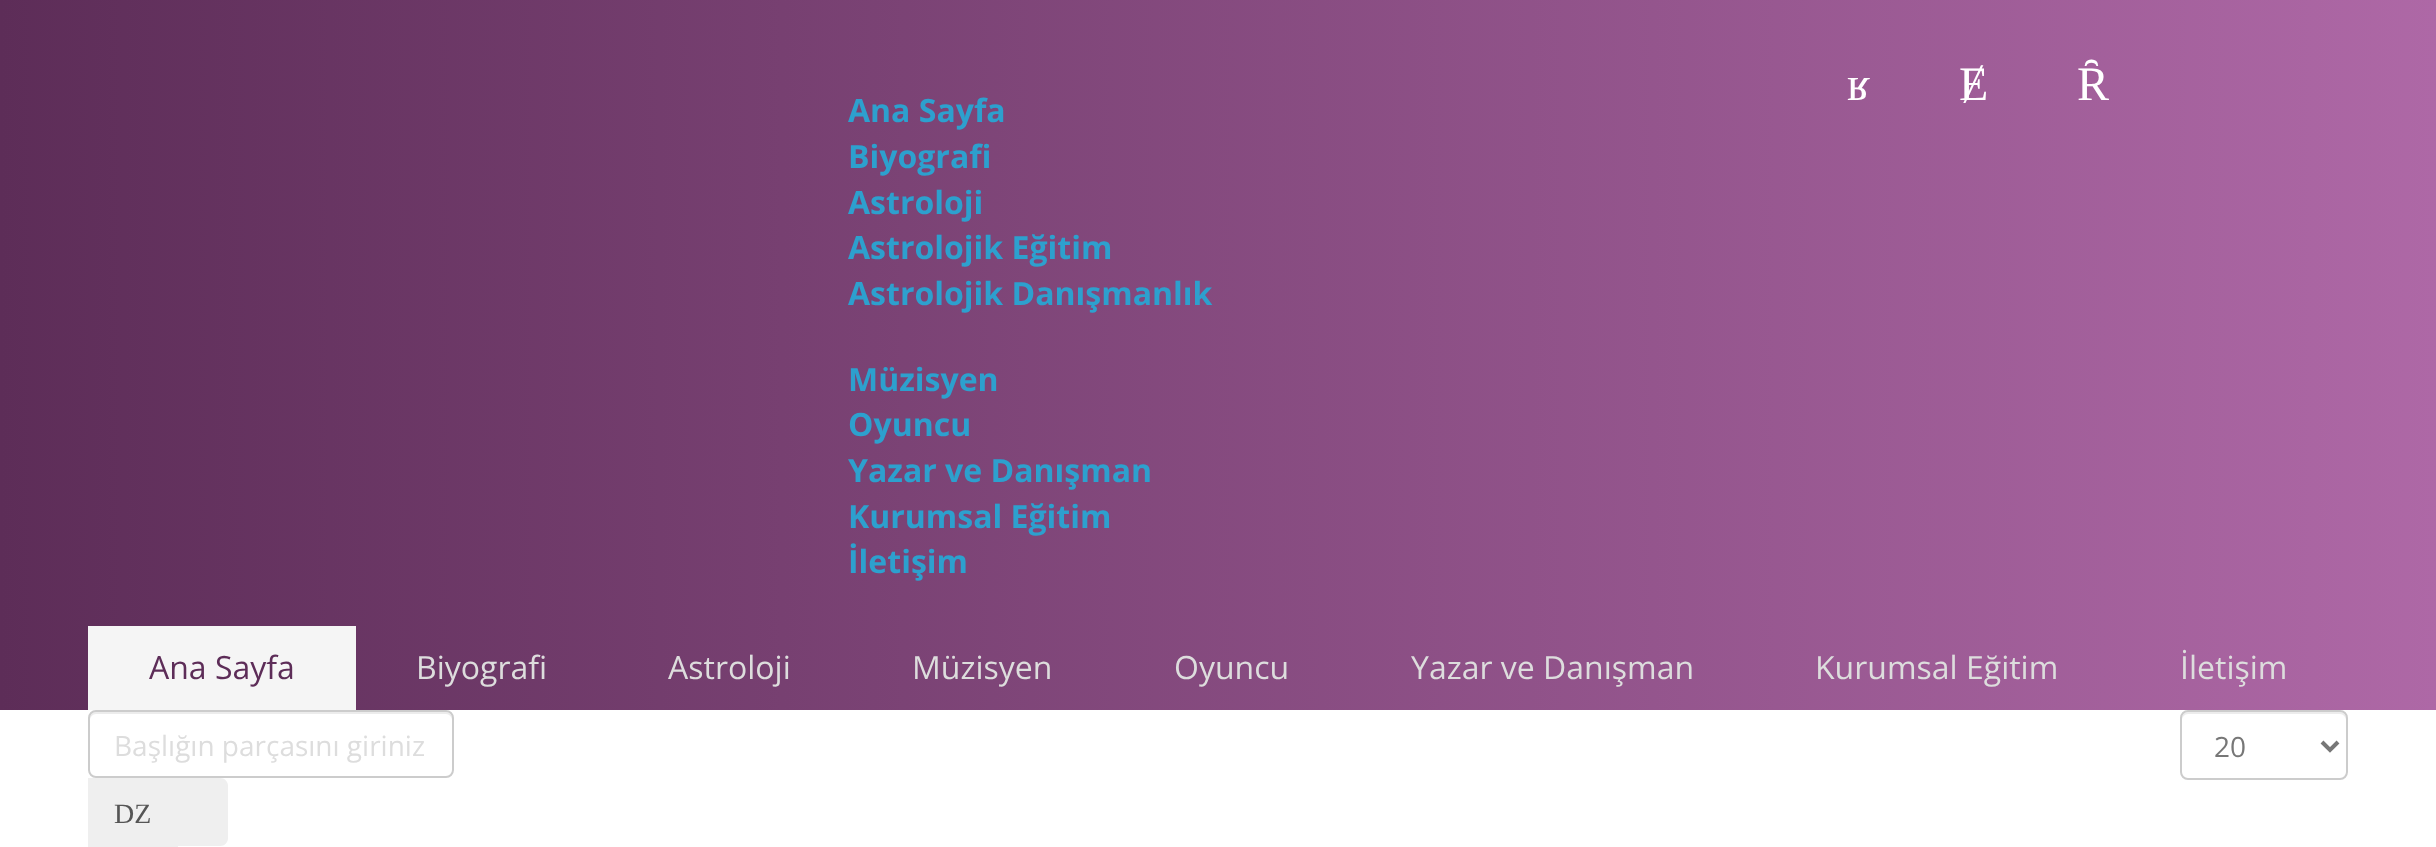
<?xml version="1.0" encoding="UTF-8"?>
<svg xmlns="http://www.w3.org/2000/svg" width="2436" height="847">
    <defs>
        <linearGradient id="g1" gradientUnits="userSpaceOnUse" x1="0" y1="355" x2="2436" y2="355"><stop offset="0" stop-color="#5D2D58"/><stop offset="1" stop-color="#AE68A6"/></linearGradient>
    </defs>
    <rect width="100%" height="100%" fill="#FFFFFF"/>
    <rect x="0" y="0" width="2436" height="710" fill="url(#g1)"/>
    <text x="1847" y="100" font-family="Liberation Serif" font-size="48" fill="#FFFFFF">ʁ</text>
    <text x="1959" y="100" font-family="Liberation Serif" font-size="48" fill="#FFFFFF">Ɇ</text>
    <text x="2077" y="100" font-family="Liberation Serif" font-size="48" fill="#FFFFFF">Ȓ</text>
    <text font-family="Open Sans" font-size="32" font-weight="700" fill="#2DA0CE">
        <tspan x="848" y="122">Ana Sayfa</tspan>
        <tspan x="848" y="168">Biyografi</tspan>
        <tspan x="848" y="214">Astroloji</tspan>
        <tspan x="848" y="259">Astrolojik Eğitim</tspan>
        <tspan x="848" y="305">Astrolojik Danışmanlık</tspan>
    </text>
    <text font-family="Open Sans" font-size="32" font-weight="700" fill="#2DA0CE">
        <tspan x="848" y="391">Müzisyen</tspan>
        <tspan x="848" y="436">Oyuncu</tspan>
        <tspan x="848" y="482">Yazar ve Danışman</tspan>
        <tspan x="848" y="528">Kurumsal Eğitim</tspan>
        <tspan x="848" y="573">İletişim</tspan>
    </text>
    <rect x="88" y="626" width="268" height="84" fill="#F5F5F5"/>
    <text x="149" y="679" font-family="Open Sans" font-size="32" fill="#5D2D58">Ana Sayfa</text>
    <text x="416" y="679" font-family="Open Sans" font-size="32" fill="#DDDDDD">Biyografi</text>
    <text x="668" y="679" font-family="Open Sans" font-size="32" fill="#DDDDDD">Astroloji</text>
    <text x="912" y="679" font-family="Open Sans" font-size="32" fill="#DDDDDD">Müzisyen</text>
    <text x="1174" y="679" font-family="Open Sans" font-size="32" fill="#DDDDDD">Oyuncu</text>
    <text x="1411" y="679" font-family="Open Sans" font-size="32" fill="#DDDDDD">Yazar ve Danışman</text>
    <text x="1815" y="679" font-family="Open Sans" font-size="32" fill="#DDDDDD">Kurumsal Eğitim</text>
    <text x="2180" y="679" font-family="Open Sans" font-size="32" fill="#DDDDDD">İletişim</text>
    <path d="M 96 714 H 446 C 449 714 452 717 452 720 V 718 C 452 715 449 712 446 712 H 96 C 93 712 90 715 90 718 V 720 C 90 717 93 714 96 714 Z" fill="#ECECEC"/>
    <rect x="89" y="711" width="364" height="66" rx="7" fill="none" stroke="#CCCCCC" stroke-width="2"/>
    <text x="114" y="756" font-family="Open Sans" font-size="28" fill="#DDDDDD">Başlığın parçasını giriniz</text>
    <rect x="88" y="778" width="90" height="69" fill="#EFEFEF"/>
    <text x="114" y="823" font-family="Liberation Serif" font-size="28" fill="#555555">Ǳ</text>
    <path d="M 176 778 H 220 C 224.5 778 228 781.5 228 786 V 838 C 228 842.5 224.5 846 220 846 H 176 Z" fill="#EFEFEF"/>
    <path d="M 2188 714 H 2340 C 2343 714 2346 717 2346 720 V 718 C 2346 715 2343 712 2340 712 H 2188 C 2185 712 2182 715 2182 718 V 720 C 2182 717 2185 714 2188 714 Z" fill="#ECECEC"/>
    <rect x="2181" y="711" width="166" height="68" rx="7" fill="none" stroke="#CCCCCC" stroke-width="2"/>
    <path d="M 2322 742 L 2330 750 L 2338 742" fill="none" stroke="#777777" stroke-width="4"/>
    <text x="2214" y="757" font-family="Open Sans" font-size="28" fill="#777777">20</text>
</svg>
